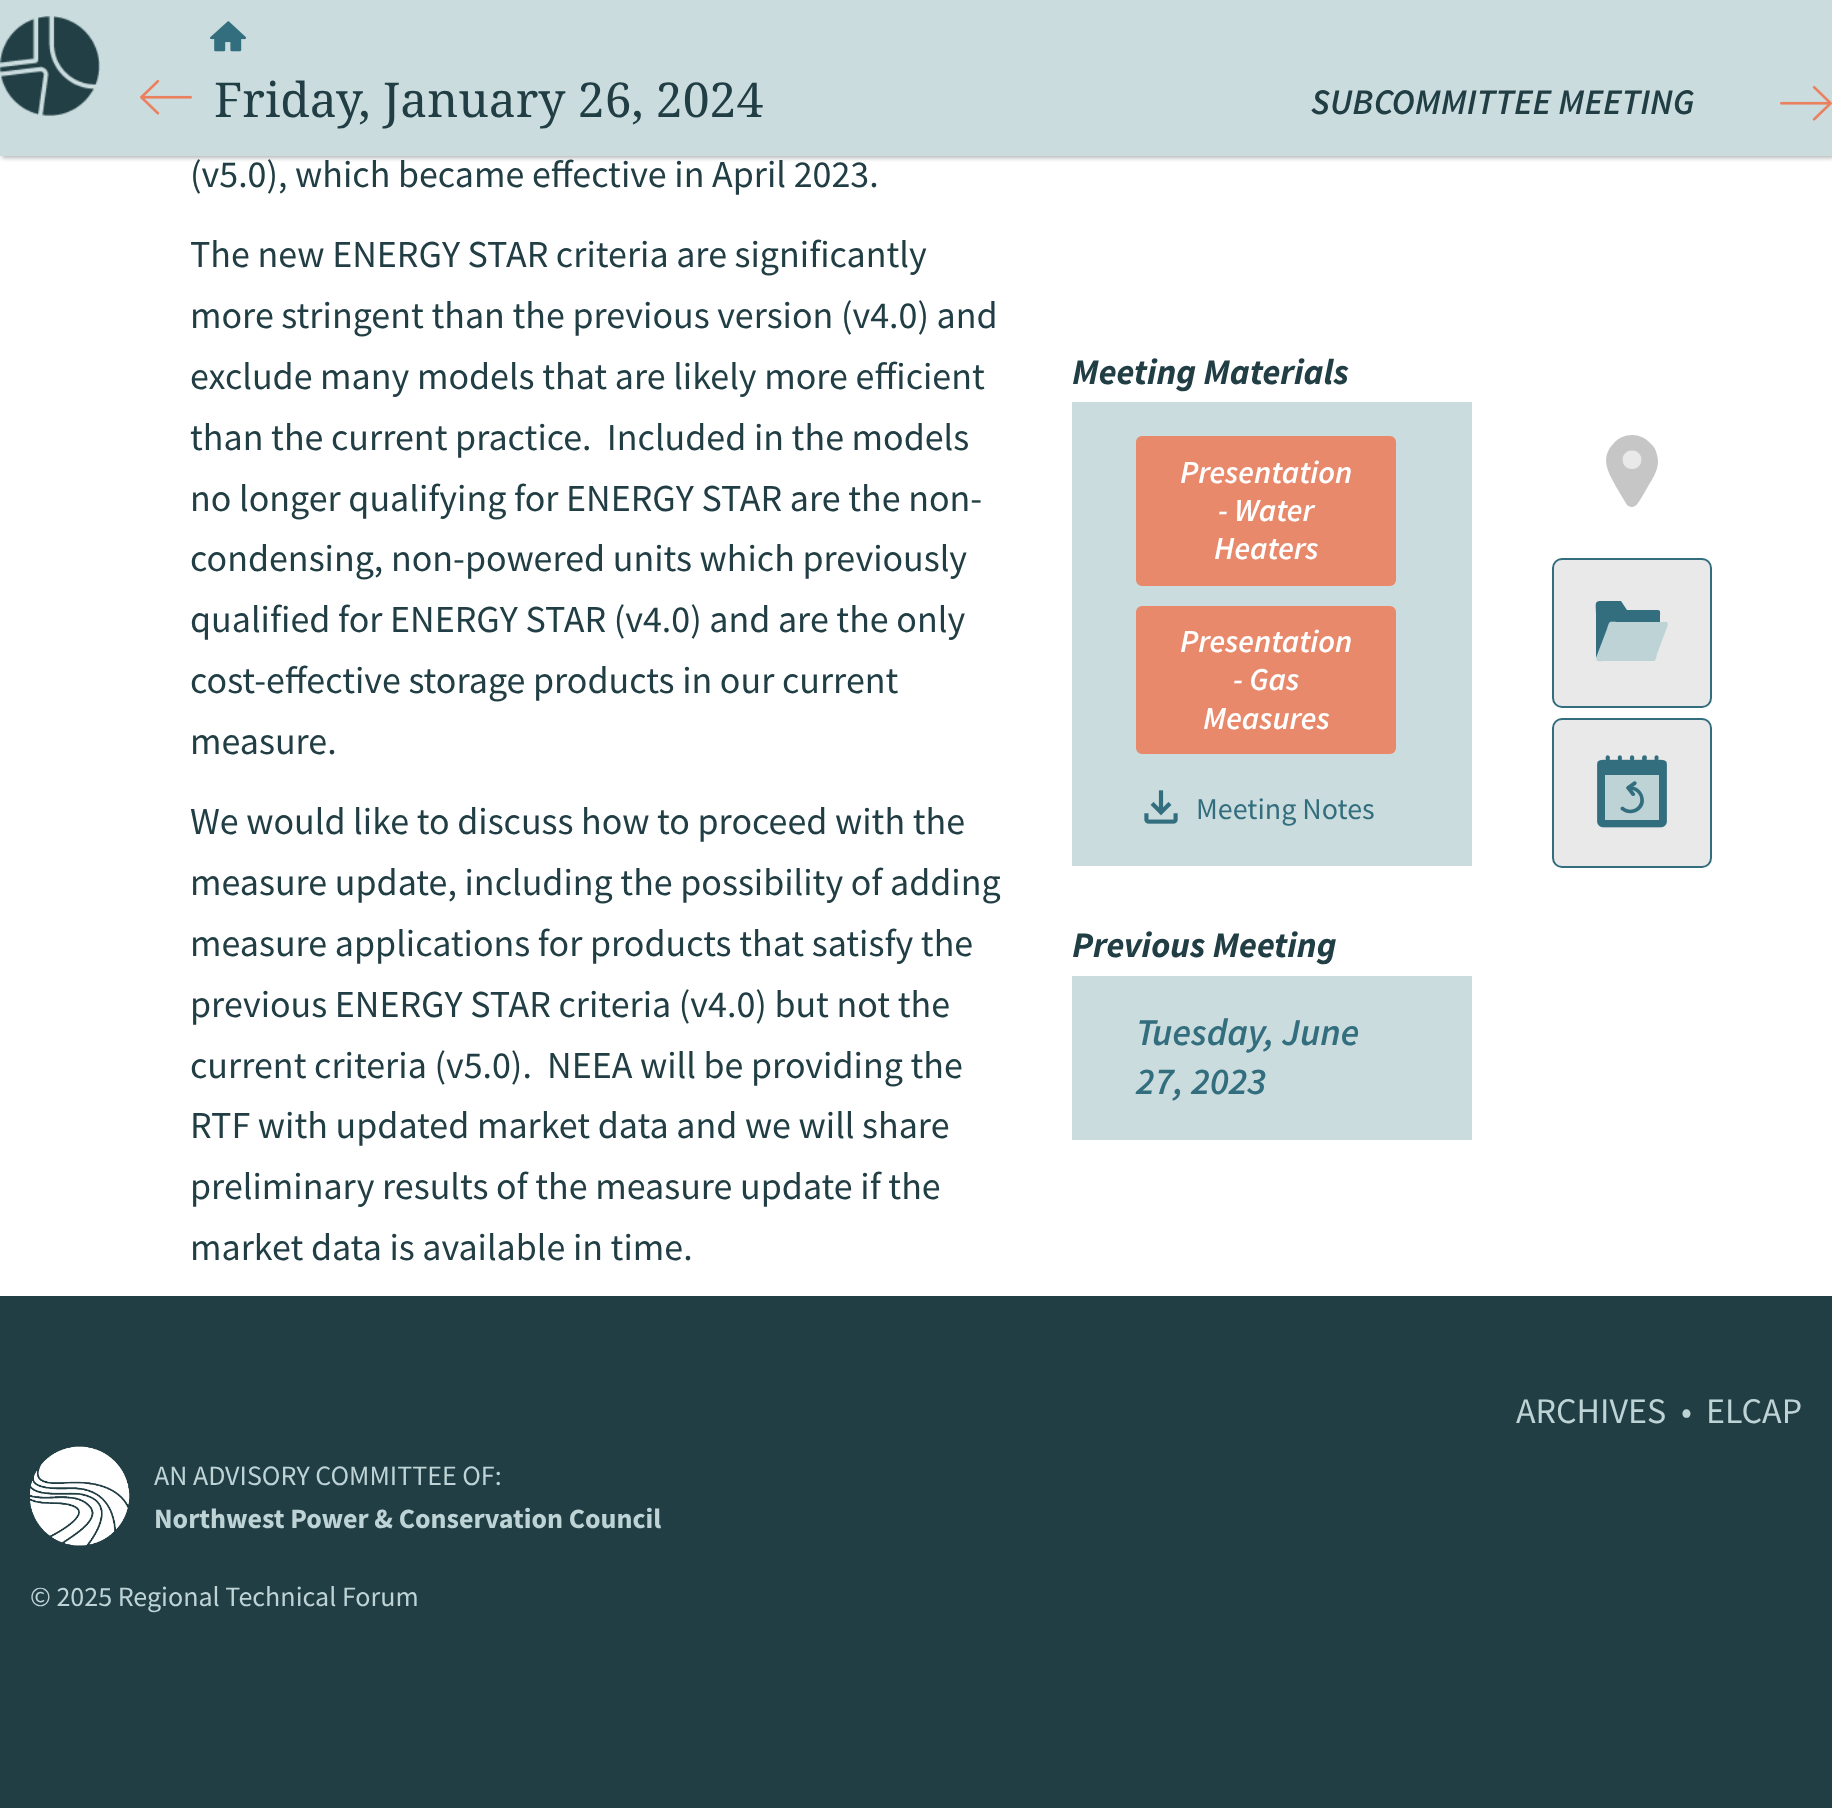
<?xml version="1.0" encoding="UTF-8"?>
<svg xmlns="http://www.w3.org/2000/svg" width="1832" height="1808">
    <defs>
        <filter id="blur1" x="-50%" y="-200%" width="200%" height="500%"><feGaussianBlur stdDeviation="2"/></filter>
    </defs>
    <rect width="100%" height="100%" fill="#FFFFFF"/>
    <rect x="2" y="2" width="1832" height="156" fill="#B6B6B6" filter="url(#blur1)"/>
    <rect x="0" y="0" width="1832" height="156" fill="#CADCDE"/>
    <image x="0" y="16" width="100" height="100" href="img_01.png"/>
    <image x="210" y="21" width="36" height="31" href="img_02.png"/>
    <image x="140" y="80" width="52" height="35" href="img_03.png"/>
    <text x="214" y="117" font-family="Droid Serif" font-size="48" fill="#213E44">Friday, January 26, 2024</text>
    <text x="1311" y="114" font-family="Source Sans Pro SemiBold" font-size="36" font-weight="600" font-style="italic" fill="#213E44">SUBCOMMITTEE MEETING</text>
    <image x="1780" y="86" width="52" height="35" href="img_04.png"/>
    <text x="190" y="187" font-family="Source Sans Pro" font-size="38" fill="#213E44">(v5.0), which became effective in April 2023.</text>
    <text font-family="Source Sans Pro" font-size="38" fill="#213E44" xml:space="preserve"><tspan x="190" y="267">The new ENERGY STAR criteria are significantly</tspan><tspan x="190" y="328">more stringent than the previous version (v4.0) and</tspan><tspan x="190" y="389">exclude many models that are likely more efficient</tspan><tspan x="190" y="450">than the current practice.  Included in the models</tspan><tspan x="190" y="511">no longer qualifying for ENERGY STAR are the non-</tspan><tspan x="190" y="571">condensing, non-powered units which previously</tspan><tspan x="190" y="632">qualified for ENERGY STAR (v4.0) and are the only</tspan><tspan x="190" y="693">cost-effective storage products in our current</tspan><tspan x="190" y="754">measure.</tspan></text>
    <text font-family="Source Sans Pro" font-size="38" fill="#213E44" xml:space="preserve"><tspan x="190" y="834">We would like to discuss how to proceed with the</tspan><tspan x="190" y="895">measure update, including the possibility of adding</tspan><tspan x="190" y="956">measure applications for products that satisfy the</tspan><tspan x="190" y="1017">previous ENERGY STAR criteria (v4.0) but not the</tspan><tspan x="190" y="1078">current criteria (v5.0).  NEEA will be providing the</tspan><tspan x="190" y="1138">RTF with updated market data and we will share</tspan><tspan x="190" y="1199">preliminary results of the measure update if the</tspan><tspan x="190" y="1260">market data is available in time.</tspan></text>
    <text x="1072" y="384" font-family="Source Sans Pro" font-size="36" font-weight="700" font-style="italic" fill="#213E44">Meeting Materials</text>
    <rect x="1072" y="402" width="400" height="464" fill="#CADCDE"/>
    <rect x="1138" y="438" width="256" height="146" rx="4" fill="#E8896B" stroke="#E8896B" stroke-width="4"/>
    <text x="1180" y="483" font-family="Source Sans Pro SemiBold" font-size="32" font-weight="600" font-style="italic" fill="#FFFFFF">Presentation</text>
    <text x="1218" y="521" font-family="Source Sans Pro SemiBold" font-size="32" font-weight="600" font-style="italic" fill="#FFFFFF">- Water</text>
    <text x="1214" y="559" font-family="Source Sans Pro SemiBold" font-size="32" font-weight="600" font-style="italic" fill="#FFFFFF">Heaters</text>
    <rect x="1138" y="608" width="256" height="144" rx="4" fill="#E8896B" stroke="#E8896B" stroke-width="4"/>
    <text x="1180" y="652" font-family="Source Sans Pro SemiBold" font-size="32" font-weight="600" font-style="italic" fill="#FFFFFF">Presentation</text>
    <text x="1233" y="690" font-family="Source Sans Pro SemiBold" font-size="32" font-weight="600" font-style="italic" fill="#FFFFFF">- Gas</text>
    <text x="1203" y="729" font-family="Source Sans Pro SemiBold" font-size="32" font-weight="600" font-style="italic" fill="#FFFFFF">Measures</text>
    <image x="1144" y="790" width="34" height="34" href="img_05.png"/>
    <text x="1196" y="819" font-family="Source Sans Pro" font-size="30" fill="#336E7E">Meeting Notes</text>
    <path d="M 1632 435 C 1625 435 1618 438 1614 443 C 1598 459 1610 475 1618 490 L 1624 500 C 1626 503 1627 507 1632 507 C 1636 507 1638 503 1640 500 L 1646 490 C 1652 479 1661 468 1657 455 C 1656 450 1654 446 1650 443 C 1646 438 1639 435 1632 435 Z" fill="#C6C6C6"/>
    <path d="M 1632 469 C 1619.5 469 1619.5 450.5 1632 450.5 C 1644.5 450.5 1644.5 469 1632 469 Z" fill="#E9E9E9"/>
    <rect x="1553" y="559" width="158" height="148" rx="9" fill="#E9E9E9" stroke="#336E7E" stroke-width="2"/>
    <path d="M 1654 661 H 1607 C 1595 661 1595 663 1598 653 L 1607 629 C 1607 629 1608 622 1610 622 H 1667 C 1669 624 1666 630 1666 630 L 1657 654 C 1657 654 1656 661 1654 661 Z" fill="#BDD3D6"/>
    <path d="M 1658 610 H 1627 L 1621 601 H 1602 C 1594 601 1596 603 1596 613 V 658 L 1607 629 C 1610 620 1608 622 1619 622 H 1660 V 616 C 1660 614 1661 610 1658 610 Z" fill="#336E7E"/>
    <rect x="1553" y="719" width="158" height="148" rx="9" fill="#E9E9E9" stroke="#336E7E" stroke-width="2"/>
    <image x="1597" y="755" width="70" height="73" href="img_06.png"/>
    <rect x="1605" y="775" width="54" height="45" fill="#BDD3D6"/>
    <image x="1620" y="786" width="24" height="28" href="img_08.png"/>
    <image x="1626" y="786" width="10" height="10" href="img_09.png"/>
    <image x="1626" y="781" width="11" height="8" href="img_07.png"/>
    <text x="1072" y="957" font-family="Source Sans Pro" font-size="36" font-weight="700" font-style="italic" fill="#213E44">Previous Meeting</text>
    <rect x="1072" y="976" width="400" height="164" fill="#CADCDE"/>
    <text font-family="Source Sans Pro SemiBold" font-size="38" font-weight="600" font-style="italic" fill="#336E7E">
        <tspan x="1136" y="1045">Tuesday, June</tspan>
        <tspan x="1136" y="1094">27, 2023</tspan>
    </text>
    <rect x="0" y="1296" width="1832" height="512" fill="#213E44"/>
    <text x="1516" y="1423" font-family="Source Sans Pro" font-size="36" fill="#BDD3D6">ARCHIVES</text>
    <text x="1681" y="1423" font-family="Source Sans Pro" font-size="36" fill="#BDD3D6">•</text>
    <text x="1706" y="1423" font-family="Source Sans Pro" font-size="36" fill="#BDD3D6">ELCAP</text>
    <image x="30" y="1446" width="100" height="100" href="img_10.png"/>
    <text x="154" y="1485" font-family="Source Sans Pro" font-size="28" fill="#BDD3D6">AN ADVISORY COMMITTEE OF:</text>
    <text x="154" y="1528" font-family="Source Sans Pro" font-size="28" font-weight="700" fill="#BDD3D6">Northwest Power &amp; Conservation Council</text>
    <text x="30" y="1606" font-family="Source Sans Pro" font-size="28" fill="#BDD3D6">© 2025 Regional Technical Forum</text>
</svg>
